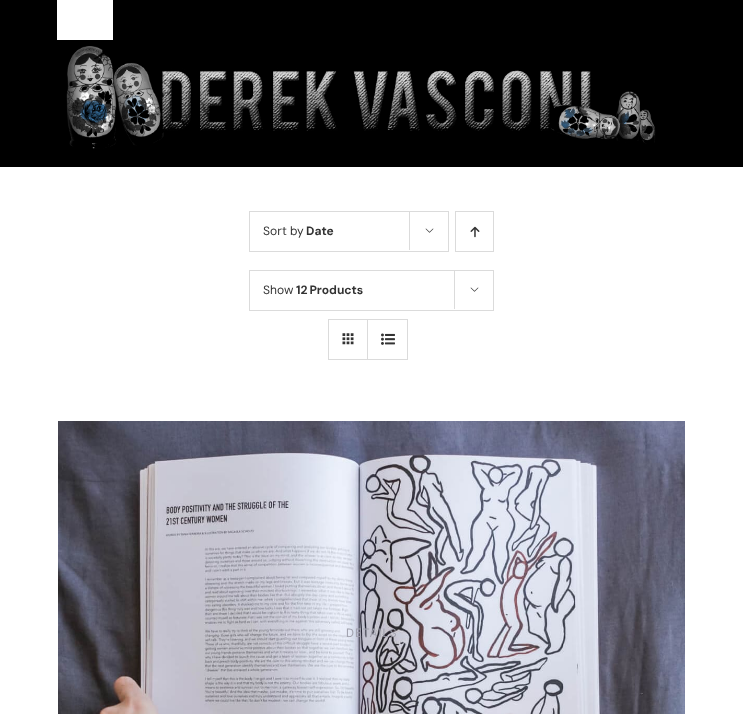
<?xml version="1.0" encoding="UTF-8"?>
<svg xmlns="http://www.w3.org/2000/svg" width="743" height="714">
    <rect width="100%" height="100%" fill="#FFFFFF"/>
    <rect x="0" y="0" width="743" height="167" fill="#000000"/>
    <rect x="57" y="0" width="56" height="40" fill="#FFFFFF"/>
    <image x="66" y="46" width="590" height="103" href="img_01.png"/>
    <rect x="249.5" y="211.5" width="199" height="40" fill="none" stroke="#DBDBDB"/>
    <text x="263" y="235" font-family="DM Sans" font-size="12" fill="#333333">Sort by</text>
    <text x="306" y="235" font-family="DM Sans" font-size="12" font-weight="700" fill="#333333">Date</text>
    <rect x="409" y="211" width="1" height="39" fill="#DBDBDB"/>
    <image x="425" y="228" width="9" height="5" href="img_02.png"/>
    <rect x="455.5" y="211.5" width="38" height="40" fill="none" stroke="#DBDBDB"/>
    <image x="470" y="226" width="10" height="12" href="img_03.png"/>
    <rect x="249.5" y="270.5" width="244" height="40" fill="none" stroke="#DBDBDB"/>
    <text x="263" y="294" font-family="DM Sans" font-size="12" fill="#333333">Show</text>
    <text x="296" y="294" word-spacing="-1" font-family="DM Sans" font-size="12" font-weight="700" fill="#333333">12 Products</text>
    <rect x="454" y="270" width="1" height="39" fill="#DBDBDB"/>
    <image x="470" y="287" width="9" height="5" href="img_02.png"/>
    <rect x="328.5" y="319.5" width="79" height="40" fill="none" stroke="#DBDBDB"/>
    <rect x="367" y="320" width="1" height="39" fill="#DBDBDB"/>
    <image x="342" y="333" width="12" height="12" href="img_04.png"/>
    <image x="381" y="333" width="14" height="12" href="img_05.png"/>
    <image x="58" y="421" width="627" height="293" href="img_06.png"/>
    <text x="346" y="637" font-family="DM Sans" font-size="12" letter-spacing="1" fill="#A0A1AD">DETAILS</text>
</svg>
